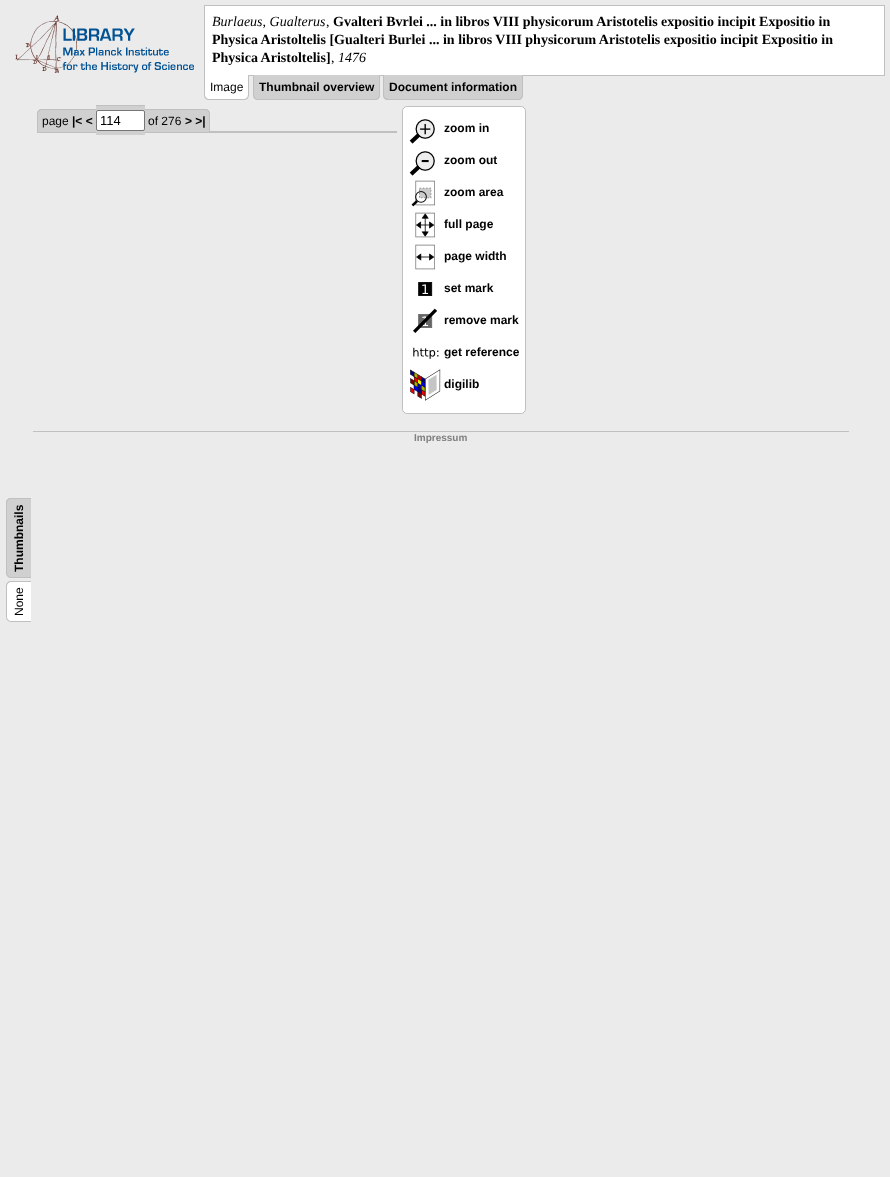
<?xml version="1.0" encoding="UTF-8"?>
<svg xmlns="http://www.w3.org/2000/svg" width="890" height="1177">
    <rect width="100%" height="100%" fill="#EBEBEB"/>
    <image x="15" y="15" width="179" height="58" href="img_01.png"/>
    <rect x="204.5" y="5.5" width="680" height="70" fill="#FFFFFF" stroke="#C0C0C0"/>
    <text x="212" y="26" font-family="Liberation Serif" font-size="14" font-style="italic" fill="#000000">Burlaeus, Gualterus</text>
    <text x="326" y="26" font-family="Liberation Serif" font-size="14" fill="#000000">,</text>
    <text x="333" y="26" font-family="Liberation Serif" font-size="14" font-weight="700" fill="#000000">Gvalteri Bvrlei ... in libros VIII physicorum Aristotelis expositio incipit Expositio in</text>
    <text font-family="Liberation Serif" font-size="14" font-weight="700" fill="#000000">
        <tspan x="212" y="44">Physica Aristoltelis [Gualteri Burlei ... in libros VIII physicorum Aristotelis expositio incipit Expositio in</tspan>
        <tspan x="212" y="62">Physica Aristoltelis]</tspan>
    </text>
    <text x="331" y="62" font-family="Liberation Serif" font-size="14" fill="#000000">,</text>
    <text x="338" y="62" font-family="Liberation Serif" font-size="14" font-style="italic" fill="#000000">1476</text>
    <path d="M 204 75 H 249 V 95 C 249 98 247 100 244 100 H 209 C 206 100 204 98 204 95 Z" fill="#FFFFFF"/>
    <path d="M 204 75 H 249 V 95 C 249 98 247 100 244 100 H 209 C 206 100 204 98 204 95 Z M 205 75 H 248 V 95 C 248 97 246 99 244 99 H 209 C 207 99 205 97 205 95 Z" fill="#C0C0C0" fill-rule="evenodd"/>
    <text x="210" y="91" font-family="Liberation Sans" font-size="12" fill="#000000">Image</text>
    <path d="M 253 75 H 380 V 95 C 380 98 378 100 375 100 H 258 C 255 100 253 98 253 95 Z" fill="#D0D0D0"/>
    <path d="M 253 75 H 380 V 95 C 380 98 378 100 375 100 H 258 C 255 100 253 98 253 95 Z M 254 75 H 379 V 95 C 379 97 377 99 375 99 H 258 C 256 99 254 97 254 95 Z" fill="#C0C0C0" fill-rule="evenodd"/>
    <text x="259" y="91" font-family="Liberation Sans" font-size="12" font-weight="700" fill="#000000">Thumbnail overview</text>
    <path d="M 383 75 H 523 V 95 C 523 98 521 100 518 100 H 388 C 385 100 383 98 383 95 Z" fill="#D0D0D0"/>
    <path d="M 383 75 H 523 V 95 C 523 98 521 100 518 100 H 388 C 385 100 383 98 383 95 Z M 384 75 H 522 V 95 C 522 97 520 99 518 99 H 388 C 386 99 384 97 384 95 Z" fill="#C0C0C0" fill-rule="evenodd"/>
    <text x="389" y="91" font-family="Liberation Sans" font-size="12" font-weight="700" fill="#000000">Document information</text>
    <rect x="37" y="131" width="360" height="2" fill="#C0C0C0"/>
    <path d="M 42 109 H 72 V 132 H 37 V 114 C 37 111 39 109 42 109 Z" fill="#D0D0D0"/>
    <path d="M 42 109 H 72 V 132 H 37 V 114 C 37 111 39 109 42 109 Z M 42 110 H 72 V 132 H 38 V 114 C 38 112 40 110 42 110 Z" fill="#C0C0C0" fill-rule="evenodd"/>
    <rect x="72" y="110" width="10" height="22" fill="#D0D0D0"/>
    <rect x="72" y="109" width="10" height="1" fill="#C0C0C0"/>
    <rect x="82" y="109" width="14" height="23" fill="#D0D0D0"/>
    <rect x="82" y="109" width="14" height="1" fill="#C0C0C0"/>
    <rect x="96" y="106" width="49" height="29" fill="#D0D0D0"/>
    <rect x="96" y="105" width="49" height="1" fill="#C0C0C0"/>
    <rect x="145" y="109" width="3" height="23" fill="#D0D0D0"/>
    <rect x="145" y="109" width="40" height="1" fill="#C0C0C0"/>
    <rect x="148" y="110" width="37" height="22" fill="#D0D0D0"/>
    <rect x="185" y="109" width="10" height="23" fill="#D0D0D0"/>
    <rect x="185" y="109" width="10" height="1" fill="#C0C0C0"/>
    <path d="M 195 109 H 205 C 208 109 210 111 210 114 V 132 H 195 Z" fill="#D0D0D0"/>
    <path d="M 195 109 H 205 C 208 109 210 111 210 114 V 132 H 195 Z M 195 110 H 205 C 207 110 209 112 209 114 V 132 H 195 Z" fill="#C0C0C0" fill-rule="evenodd"/>
    <text x="42" y="125" font-family="Liberation Sans" font-size="12" fill="#000000">page</text>
    <text x="72" y="125" font-family="Liberation Sans" font-size="12" font-weight="700" fill="#000000">|&lt; &lt;</text>
    <rect x="96.5" y="110.5" width="48" height="20" rx="1.5" fill="#FFFFFF" stroke="#767676"/>
    <text x="100" y="125" font-family="Liberation Sans" font-size="13" fill="#000000">114</text>
    <text x="148" y="125" font-family="Liberation Sans" font-size="12" fill="#000000">of 276</text>
    <text x="185" y="125" font-family="Liberation Sans" font-size="12" font-weight="700" fill="#000000">&gt; &gt;|</text>
    <rect x="402.5" y="106.5" width="123" height="307" rx="4.5" fill="#FFFFFF" stroke="#C0C0C0"/>
    <image x="409" y="119" width="26" height="25" href="img_02.png"/>
    <text x="444" y="132" font-family="Liberation Sans" font-size="12" font-weight="700" fill="#000000">zoom in</text>
    <image x="409" y="151" width="26" height="25" href="img_03.png"/>
    <text x="444" y="164" font-family="Liberation Sans" font-size="12" font-weight="700" fill="#000000">zoom out</text>
    <image x="411" y="180" width="24" height="27" href="img_04.png"/>
    <text x="444" y="196" font-family="Liberation Sans" font-size="12" font-weight="700" fill="#000000">zoom area</text>
    <image x="415" y="212" width="20" height="26" href="img_05.png"/>
    <text x="444" y="228" font-family="Liberation Sans" font-size="12" font-weight="700" fill="#000000">full page</text>
    <image x="415" y="244" width="20" height="26" href="img_06.png"/>
    <text x="444" y="260" font-family="Liberation Sans" font-size="12" font-weight="700" fill="#000000">page width</text>
    <image x="418" y="282" width="15" height="14" href="img_07.png"/>
    <text x="444" y="292" font-family="Liberation Sans" font-size="12" font-weight="700" fill="#000000">set mark</text>
    <image x="413" y="308" width="24" height="25" href="img_08.png"/>
    <text x="444" y="324" font-family="Liberation Sans" font-size="12" font-weight="700" fill="#000000">remove mark</text>
    <image x="413" y="347" width="26" height="12" href="img_09.png"/>
    <text x="444" y="356" font-family="Liberation Sans" font-size="12" font-weight="700" fill="#000000">get reference</text>
    <image x="410" y="369" width="31" height="32" href="img_10.png"/>
    <text x="444" y="388" font-family="Liberation Sans" font-size="12" font-weight="700" fill="#000000">digilib</text>
    <path d="M 6 573 V 503 C 6 500 8 498 11 498 H 31 V 578 H 11 C 8 578 6 575 6 573 Z" fill="#D0D0D0"/>
    <path d="M 6 573 V 503 C 6 500 8 498 11 498 H 31 V 578 H 11 C 8 578 6 575 6 573 Z M 7 573 V 503 C 7 501 9 499 11 499 H 31 V 577 H 11 C 9 577 7 575 7 573 Z" fill="#C0C0C0" fill-rule="evenodd"/>
    <text x="23" y="572" transform="rotate(-90 23 572)" font-family="Liberation Sans" font-size="12" font-weight="700" fill="#000000">Thumbnails</text>
    <path d="M 6 617 V 586 C 6 583 8 581 11 581 H 31 V 622 H 11 C 8 622 6 619 6 617 Z" fill="#FFFFFF"/>
    <path d="M 6 617 V 586 C 6 583 8 581 11 581 H 31 V 622 H 11 C 8 622 6 619 6 617 Z M 7 617 V 586 C 7 584 9 582 11 582 H 31 V 621 H 11 C 9 621 7 619 7 617 Z" fill="#C0C0C0" fill-rule="evenodd"/>
    <text x="23" y="616" transform="rotate(-90 23 616)" font-family="Liberation Sans" font-size="12" fill="#000000">None</text>
    <rect x="33" y="431" width="816" height="1" fill="#C0C0C0"/>
    <text x="414" y="441" font-family="Liberation Sans" font-size="10" font-weight="700" fill="#808080">Impressum</text>
</svg>
